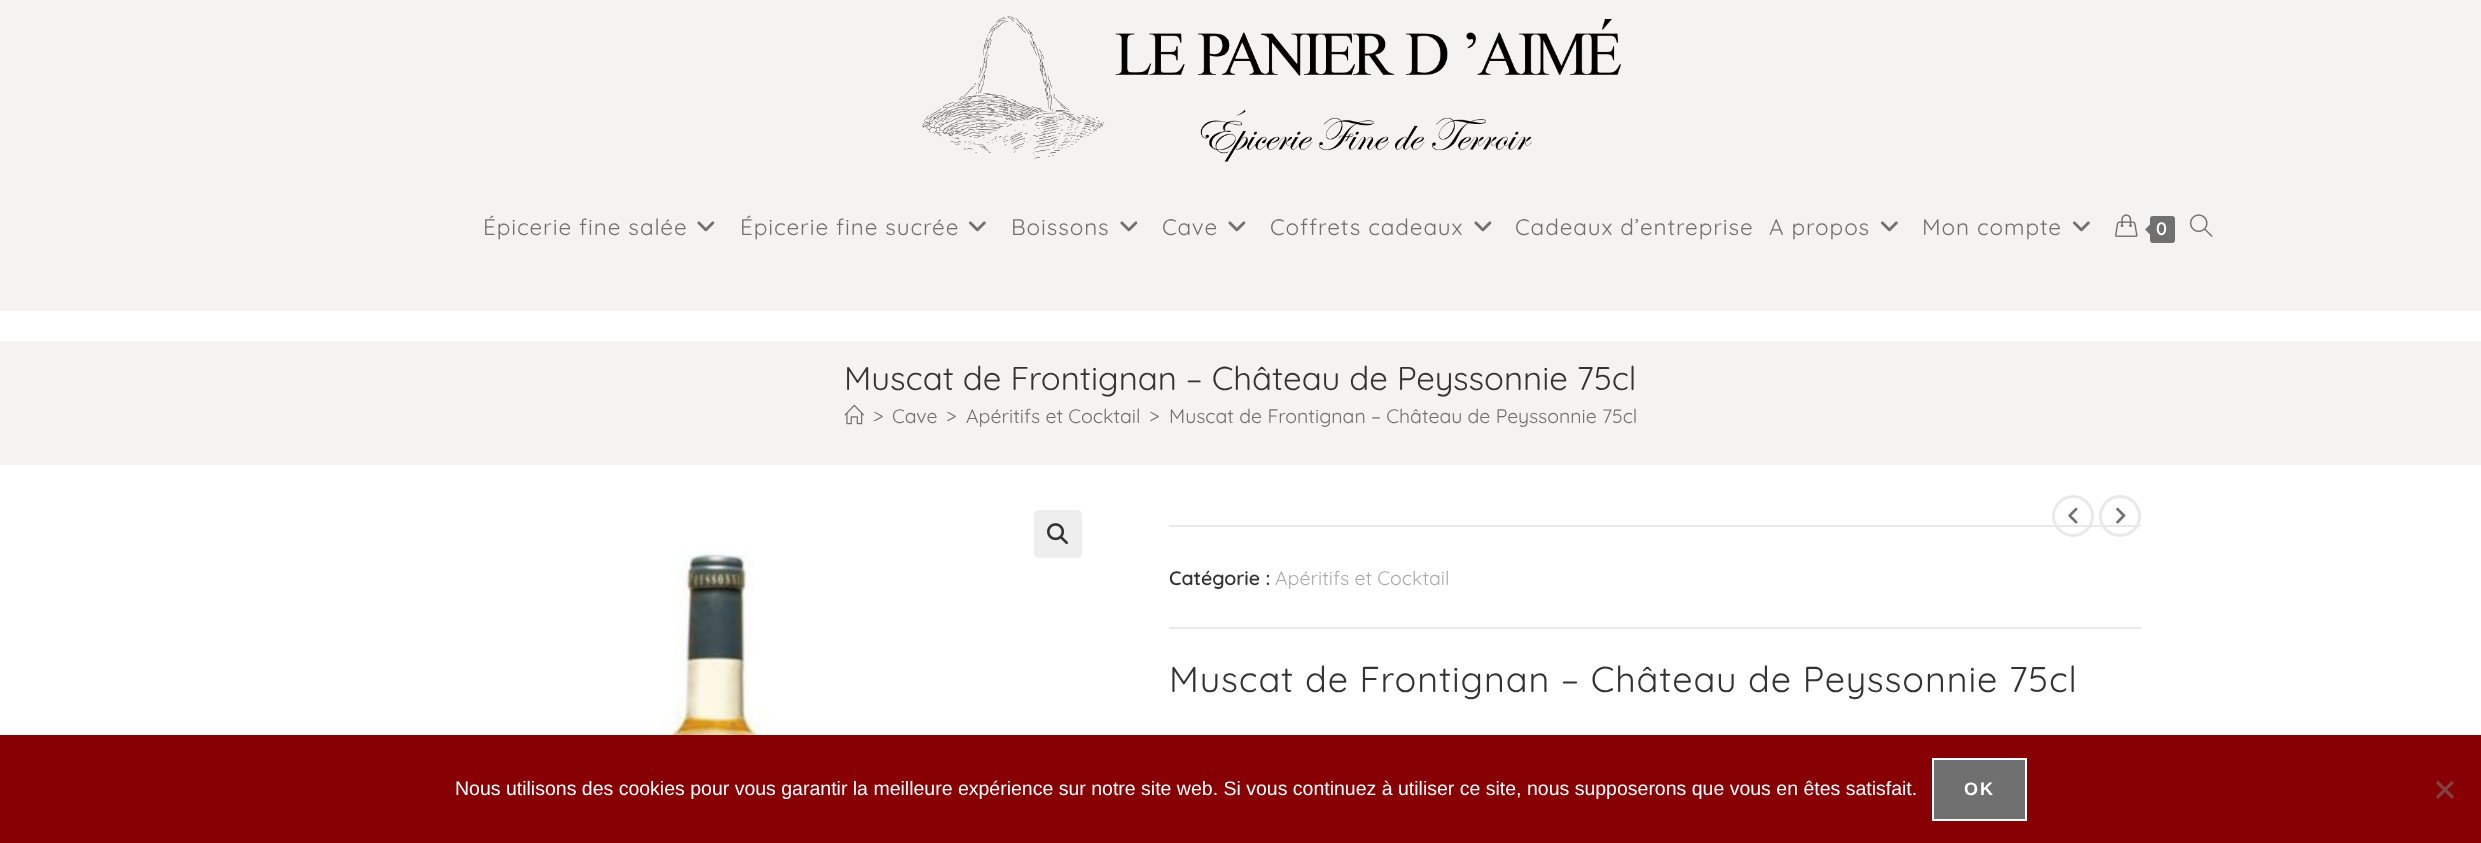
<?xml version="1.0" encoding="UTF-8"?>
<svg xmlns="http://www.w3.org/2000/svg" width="2481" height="843">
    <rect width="100%" height="100%" fill="#FFFFFF"/>
    <rect x="0" y="0" width="2481" height="311" fill="#F4F3F1"/>
    <image x="922" y="16" width="699" height="146" href="img_01.png"/>
    <text x="483" y="235" font-family="Quicksand" font-size="22.5" letter-spacing="0.9" fill="#707070">Épicerie fine salée</text>
    <image x="697" y="221" width="18" height="11" href="img_02.png"/>
    <text x="740" y="235" font-family="Quicksand" font-size="22.5" letter-spacing="0.9" fill="#707070">Épicerie fine sucrée</text>
    <image x="968" y="221" width="18" height="11" href="img_03.png"/>
    <text x="1011" y="235" font-family="Quicksand" font-size="22.5" letter-spacing="0.9" fill="#707070">Boissons</text>
    <image x="1120" y="221" width="18" height="11" href="img_02.png"/>
    <text x="1162" y="235" font-family="Quicksand" font-size="22.5" letter-spacing="0.9" fill="#707070">Cave</text>
    <image x="1228" y="221" width="18" height="11" href="img_02.png"/>
    <text x="1270" y="235" font-family="Quicksand" font-size="22.5" letter-spacing="0.9" fill="#707070">Coffrets cadeaux</text>
    <image x="1474" y="221" width="18" height="11" href="img_02.png"/>
    <text x="1515" y="235" font-family="Quicksand" font-size="22.5" letter-spacing="0.9" fill="#707070">Cadeaux d’entreprise</text>
    <text x="1769" y="235" font-family="Quicksand" font-size="22.5" letter-spacing="0.9" fill="#707070">A propos</text>
    <image x="1880" y="221" width="18" height="11" href="img_03.png"/>
    <text x="1922" y="235" font-family="Quicksand" font-size="22.5" letter-spacing="0.9" fill="#707070">Mon compte</text>
    <image x="2072" y="221" width="18" height="11" href="img_03.png"/>
    <image x="2115" y="214" width="23" height="23" href="img_04.png"/>
    <rect x="2150" y="216" width="25" height="27" rx="3" fill="#707070"/>
    <path d="M 2152.5 222 V 237 L 2145 229.5 Z" fill="#707070"/>
    <text x="2156" y="235" font-family="Quicksand" font-size="18" font-weight="600" fill="#FFFFFF">0</text>
    <image x="2189" y="214" width="24" height="23" href="img_05.png"/>
    <rect x="0" y="341" width="2481" height="124" fill="#F4F3F1"/>
    <text x="844" y="390" font-family="Quicksand" font-size="33" fill="#333333">Muscat de Frontignan – Château de Peyssonnie 75cl</text>
    <image x="844" y="404" width="20" height="21" href="img_06.png"/>
    <text x="873" y="423" font-family="Quicksand" font-size="19.5" fill="#707070">&gt;</text>
    <text x="892" y="423" font-family="Quicksand" font-size="19.5" fill="#707070">Cave</text>
    <text x="946" y="423" font-family="Quicksand" font-size="19.5" fill="#707070">&gt;</text>
    <text x="966" y="423" font-family="Quicksand" font-size="19.5" fill="#707070">Apéritifs et Cocktail</text>
    <text x="1149" y="423" font-family="Quicksand" font-size="19.5" fill="#707070">&gt;</text>
    <text x="1169" y="423" font-family="Quicksand" font-size="19.5" fill="#707070">Muscat de Frontignan – Château de Peyssonnie 75cl</text>
    <rect x="1034" y="510" width="48" height="48" rx="5" fill="#EEEEEE"/>
    <image x="1047" y="523" width="21" height="22" href="img_07.png"/>
    <image x="629" y="551" width="167" height="184" href="img_08.png"/>
    <rect x="1169" y="525" width="972" height="2" fill="#EAEAEA"/>
    <rect x="1169" y="627" width="972" height="2" fill="#EAEAEA"/>
    <text x="1169" y="585" font-family="Quicksand" font-size="19.5" font-weight="600" fill="#333333">Catégorie :</text>
    <text x="1275" y="585" font-family="Quicksand" font-size="19.5" fill="#ABABAB">Apéritifs et Cocktail</text>
    <text x="1169" y="692" font-family="Quicksand" font-size="36" letter-spacing="0.9" fill="#333333">Muscat de Frontignan – Château de Peyssonnie 75cl</text>
    <circle cx="2073" cy="516" r="19.5" fill="none" stroke="#E9E9E9" stroke-width="3"/>
    <image x="2068" y="507" width="10" height="17" href="img_09.png"/>
    <circle cx="2120" cy="516" r="19.5" fill="none" stroke="#E9E9E9" stroke-width="3"/>
    <image x="2116" y="507" width="10" height="17" href="img_10.png"/>
    <rect x="0" y="735" width="2481" height="108" fill="#870104"/>
    <text x="455" y="795" font-family="Liberation Sans" font-size="19.5" fill="#FFFFFF">Nous utilisons des cookies pour vous garantir la meilleure expérience sur notre site web. Si vous continuez à utiliser ce site, nous supposerons que vous en êtes satisfait.</text>
    <rect x="1933" y="759" width="93" height="61" fill="#707070" stroke="#FFFFFF" stroke-width="2"/>
    <text x="1964" y="795" font-family="Liberation Sans" font-size="18" font-weight="700" letter-spacing="2" fill="#FFFFFF">OK</text>
    <path d="M 2452 780.5 L 2454 783 L 2438 799 L 2436 796.5 Z" fill="#844142"/>
    <path d="M 2436 783 L 2438 780.5 L 2454 796.5 L 2452 799 Z" fill="#844142"/>
</svg>
